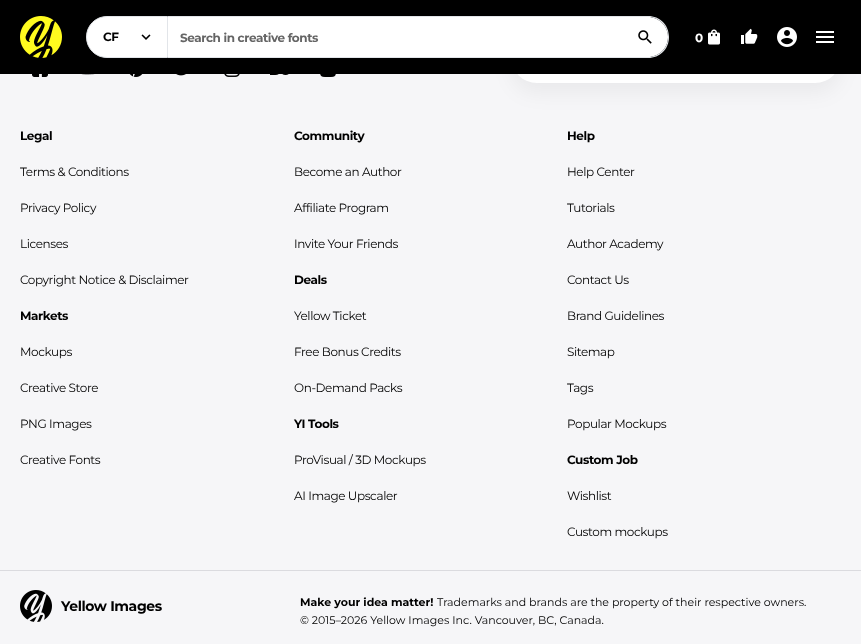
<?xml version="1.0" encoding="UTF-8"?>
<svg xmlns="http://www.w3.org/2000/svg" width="861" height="644">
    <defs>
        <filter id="blur1" x="-50%" y="-200%" width="200%" height="500%"><feGaussianBlur stdDeviation="10"/></filter>
    </defs>
    <rect width="100%" height="100%" fill="#F6F6F8"/>
    <rect x="511" y="-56" width="330" height="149" rx="26" fill="#000000" fill-opacity="0.05" filter="url(#blur1)"/>
    <rect x="511" y="-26" width="330" height="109" rx="26" fill="#FFFFFF"/>
    <rect x="0" y="0" width="861" height="74" fill="#000000"/>
    <image x="20" y="16" width="42" height="42" href="img_01.png"/>
    <path d="M 107 16.5 H 167.5 V 57.5 H 107 C 95.5 57.5 86.5 48.5 86.5 37 C 86.5 25.5 95.5 16.5 107 16.5 Z" fill="#FFFFFF" stroke="#E2E5E9"/>
    <text x="103" y="41" font-family="Montserrat" font-size="12" font-weight="100" letter-spacing="-0.4" fill="#000000">CF</text>
    <image x="141" y="34" width="10" height="6" href="img_02.png"/>
    <path d="M 168 17 H 648 C 659 17 668 26 668 37 C 668 48 659 57 648 57 H 168 Z" fill="#FFFFFF"/>
    <path d="M 168 16 H 648 C 660 16 669 25 669 37 C 669 49 660 58 648 58 H 168 Z M 168 17 H 648 C 659 17 668 26 668 37 C 668 48 659 57 648 57 H 168 Z" fill="#E2E5E9" fill-rule="evenodd"/>
    <text x="180" y="42" font-family="Montserrat" font-size="12" font-weight="100" letter-spacing="-0.4" fill="#656565">Search in creative fonts</text>
    <image x="638" y="30" width="14" height="14" href="img_03.png"/>
    <text x="695" y="42" font-family="Montserrat" font-size="12" font-weight="100" letter-spacing="-0.4" fill="#FFFFFF">0</text>
    <image x="708" y="29" width="12" height="16" href="img_04.png"/>
    <image x="741" y="28" width="17" height="16" href="img_05.png"/>
    <image x="777" y="27" width="20" height="20" href="img_06.png"/>
    <image x="816" y="31" width="18" height="12" href="img_07.png"/>
    <image x="32" y="74" width="16" height="3" href="img_08.png"/>
    <image x="81" y="74" width="14" height="1" href="img_09.png"/>
    <image x="129" y="74" width="14" height="3" href="img_10.png"/>
    <image x="176" y="74" width="10" height="2" href="img_11.png"/>
    <image x="224" y="74" width="16" height="3" href="img_12.png"/>
    <image x="270" y="74" width="19" height="1" href="img_13.png"/>
    <image x="320" y="74" width="16" height="3" href="img_14.png"/>
    <text x="20" y="140" font-family="Montserrat" font-size="12" font-weight="100" letter-spacing="-0.4" fill="#000000">Legal</text>
    <text x="20" y="176" font-family="'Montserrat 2'" font-size="12" font-weight="100" letter-spacing="-0.4" fill="#000000">Terms &amp; Conditions</text>
    <text x="20" y="212" font-family="'Montserrat 2'" font-size="12" font-weight="100" letter-spacing="-0.4" fill="#000000">Privacy Policy</text>
    <text x="20" y="248" font-family="'Montserrat 2'" font-size="12" font-weight="100" letter-spacing="-0.4" fill="#000000">Licenses</text>
    <text x="20" y="284" font-family="'Montserrat 2'" font-size="12" font-weight="100" letter-spacing="-0.4" fill="#000000">Copyright Notice &amp; Disclaimer</text>
    <text x="294" y="140" font-family="Montserrat" font-size="12" font-weight="100" letter-spacing="-0.4" fill="#000000">Community</text>
    <text x="294" y="176" font-family="'Montserrat 2'" font-size="12" font-weight="100" letter-spacing="-0.4" fill="#000000">Become an Author</text>
    <text x="294" y="212" font-family="'Montserrat 2'" font-size="12" font-weight="100" letter-spacing="-0.4" fill="#000000">Affiliate Program</text>
    <text x="294" y="248" font-family="'Montserrat 2'" font-size="12" font-weight="100" letter-spacing="-0.4" fill="#000000">Invite Your Friends</text>
    <text x="567" y="140" font-family="Montserrat" font-size="12" font-weight="100" letter-spacing="-0.4" fill="#000000">Help</text>
    <text x="567" y="176" font-family="'Montserrat 2'" font-size="12" font-weight="100" letter-spacing="-0.4" fill="#000000">Help Center</text>
    <text x="567" y="212" font-family="'Montserrat 2'" font-size="12" font-weight="100" letter-spacing="-0.4" fill="#000000">Tutorials</text>
    <text x="567" y="248" font-family="'Montserrat 2'" font-size="12" font-weight="100" letter-spacing="-0.4" fill="#000000">Author Academy</text>
    <text x="567" y="284" font-family="'Montserrat 2'" font-size="12" font-weight="100" letter-spacing="-0.4" fill="#000000">Contact Us</text>
    <text x="567" y="320" font-family="'Montserrat 2'" font-size="12" font-weight="100" letter-spacing="-0.4" fill="#000000">Brand Guidelines</text>
    <text x="567" y="356" font-family="'Montserrat 2'" font-size="12" font-weight="100" letter-spacing="-0.4" fill="#000000">Sitemap</text>
    <text x="567" y="392" font-family="'Montserrat 2'" font-size="12" font-weight="100" letter-spacing="-0.4" fill="#000000">Tags</text>
    <text x="567" y="428" font-family="'Montserrat 2'" font-size="12" font-weight="100" letter-spacing="-0.4" fill="#000000">Popular Mockups</text>
    <text x="20" y="320" font-family="Montserrat" font-size="12" font-weight="100" letter-spacing="-0.4" fill="#000000">Markets</text>
    <text x="20" y="356" font-family="'Montserrat 2'" font-size="12" font-weight="100" letter-spacing="-0.4" fill="#000000">Mockups</text>
    <text x="20" y="392" font-family="'Montserrat 2'" font-size="12" font-weight="100" letter-spacing="-0.4" fill="#000000">Creative Store</text>
    <text x="20" y="428" font-family="'Montserrat 2'" font-size="12" font-weight="100" letter-spacing="-0.4" fill="#000000">PNG Images</text>
    <text x="20" y="464" font-family="'Montserrat 2'" font-size="12" font-weight="100" letter-spacing="-0.4" fill="#000000">Creative Fonts</text>
    <text x="294" y="284" font-family="Montserrat" font-size="12" font-weight="100" letter-spacing="-0.4" fill="#000000">Deals</text>
    <text x="294" y="320" font-family="'Montserrat 2'" font-size="12" font-weight="100" letter-spacing="-0.4" fill="#000000">Yellow Ticket</text>
    <text x="294" y="356" font-family="'Montserrat 2'" font-size="12" font-weight="100" letter-spacing="-0.4" fill="#000000">Free Bonus Credits</text>
    <text x="294" y="392" font-family="'Montserrat 2'" font-size="12" font-weight="100" letter-spacing="-0.4" fill="#000000">On-Demand Packs</text>
    <text x="294" y="428" font-family="Montserrat" font-size="12" font-weight="100" letter-spacing="-0.4" fill="#000000">YI Tools</text>
    <text x="294" y="464" font-family="'Montserrat 2'" font-size="12" font-weight="100" letter-spacing="-0.4" fill="#000000">ProVisual / 3D Mockups</text>
    <text x="294" y="500" font-family="'Montserrat 2'" font-size="12" font-weight="100" letter-spacing="-0.4" fill="#000000">AI Image Upscaler</text>
    <text x="567" y="464" font-family="Montserrat" font-size="12" font-weight="100" letter-spacing="-0.4" fill="#000000">Custom Job</text>
    <text x="567" y="500" font-family="'Montserrat 2'" font-size="12" font-weight="100" letter-spacing="-0.4" fill="#000000">Wishlist</text>
    <text x="567" y="536" font-family="'Montserrat 2'" font-size="12" font-weight="100" letter-spacing="-0.4" fill="#000000">Custom mockups</text>
    <rect x="0" y="570" width="861" height="1" fill="#DBDBDF"/>
    <image x="20" y="590" width="32" height="32" href="img_15.png"/>
    <text x="61" y="611" font-family="Montserrat" font-size="14" font-weight="100" letter-spacing="-0.4" fill="#000000">Yellow Images</text>
    <text x="300" y="606" font-family="Montserrat" font-size="11" font-weight="100" fill="#000000">Make your idea matter!</text>
    <text x="437" y="606" font-family="'Montserrat 2'" font-size="11" font-weight="100" fill="#000000">Trademarks and brands are the property of their respective owners.</text>
    <text x="300" y="624" font-family="'Montserrat 2'" font-size="11" font-weight="100" fill="#000000">© 2015–2026 Yellow Images Inc. Vancouver, BC, Canada.</text>
</svg>
